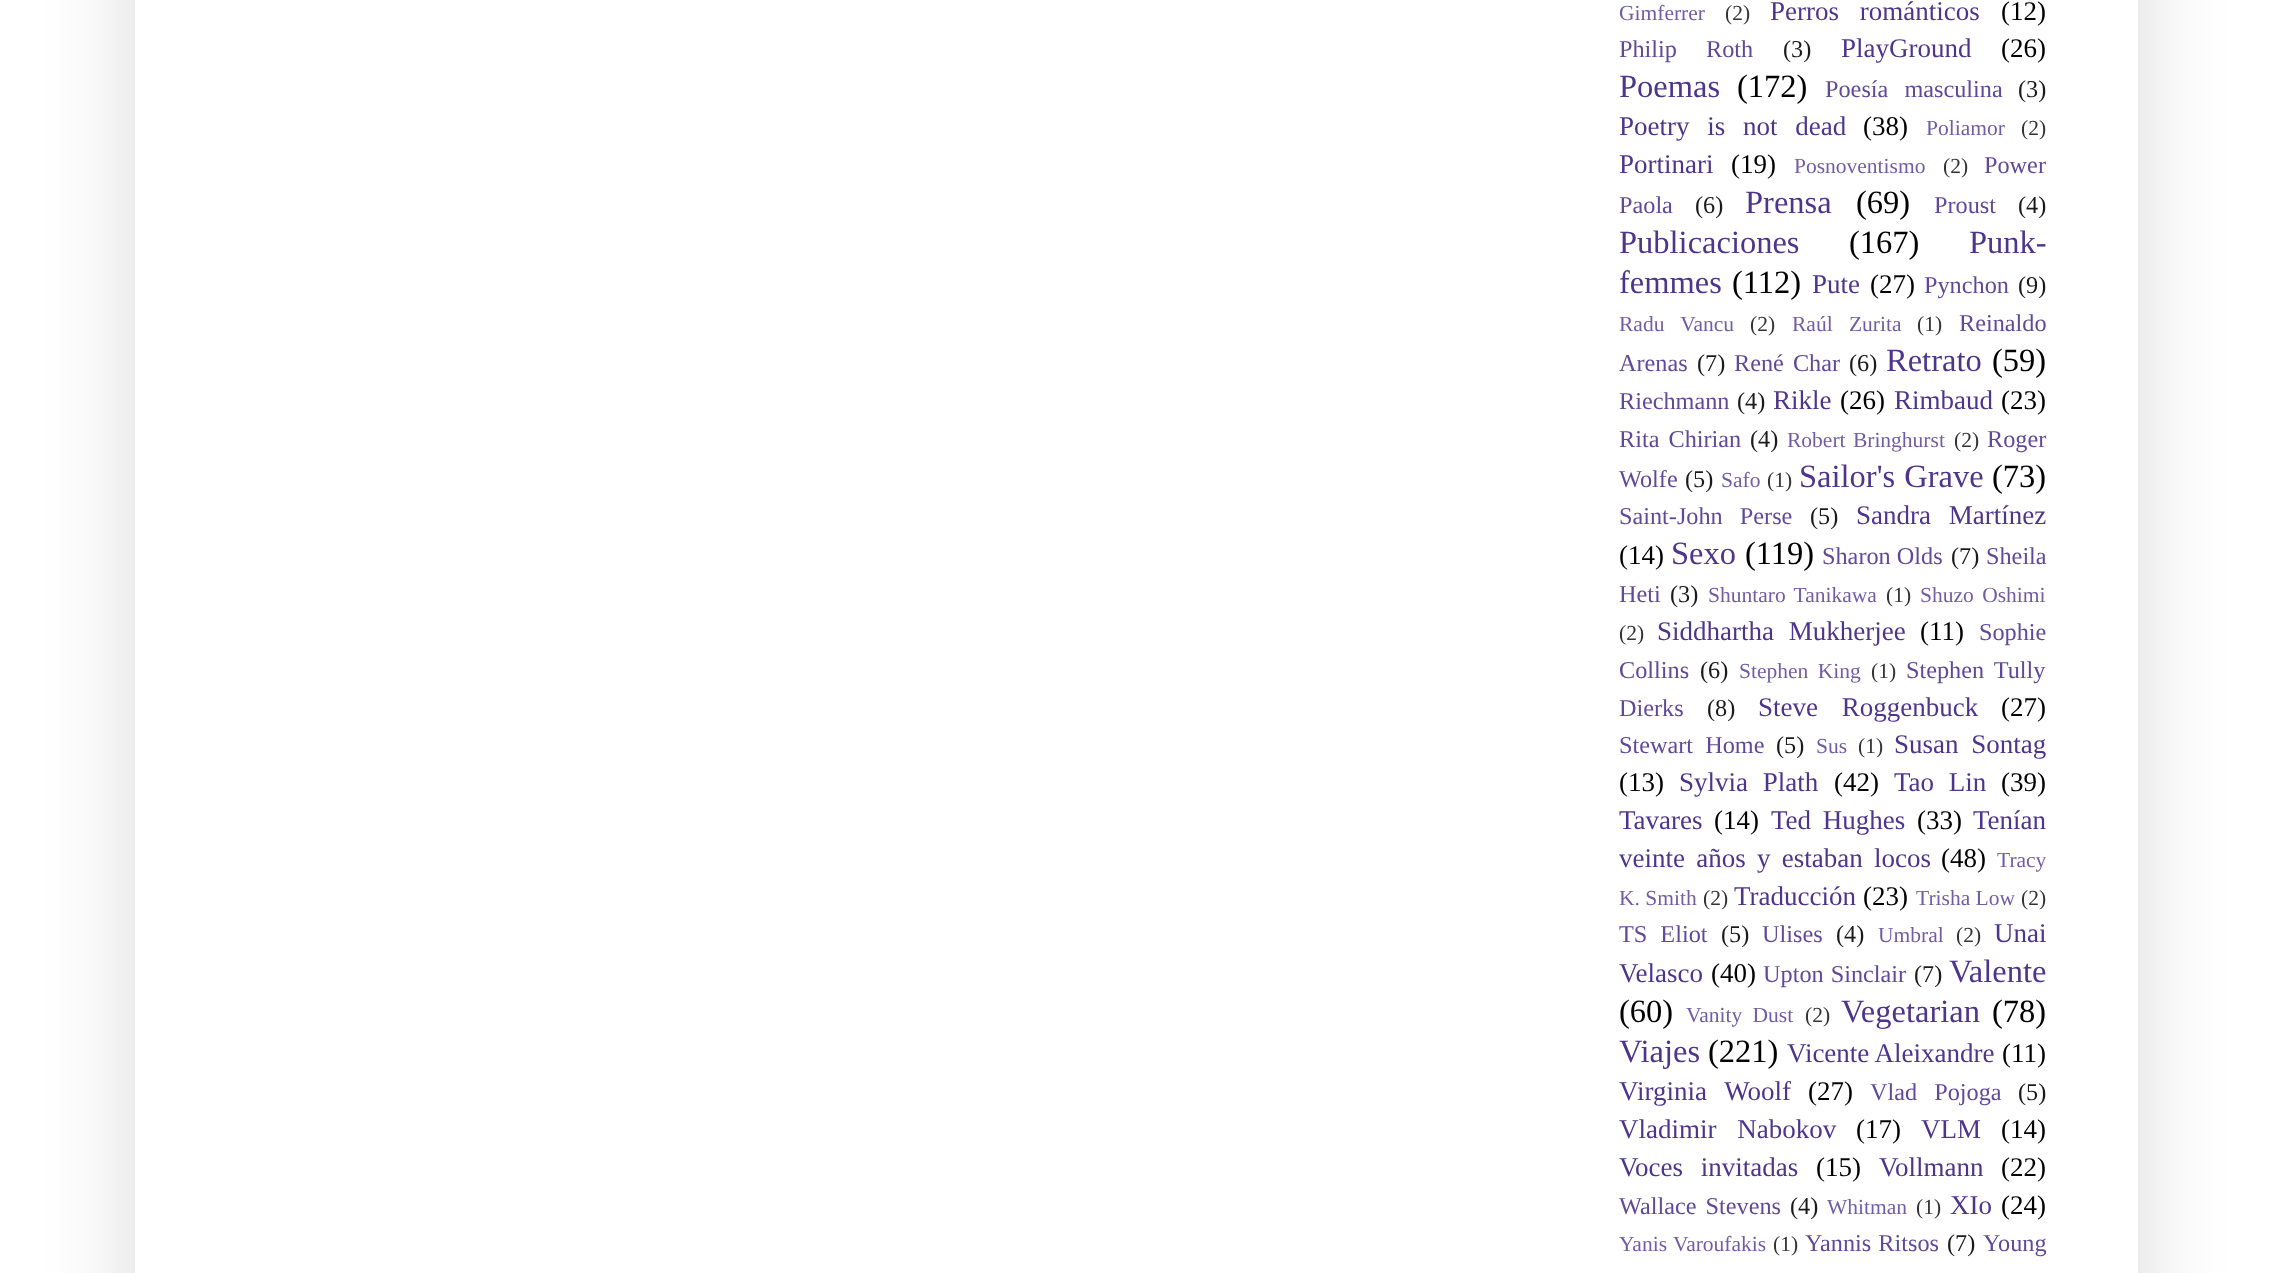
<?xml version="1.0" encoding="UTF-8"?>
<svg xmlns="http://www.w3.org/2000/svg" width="2270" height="1273">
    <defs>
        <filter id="blur1" x="-50%" y="-200%" width="200%" height="500%"><feGaussianBlur stdDeviation="45"/></filter>
    </defs>
    <rect width="100%" height="100%" fill="#FFFFFF"/>
    <rect x="135" y="-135" width="2003" height="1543" fill="#000000" fill-opacity="0.15" filter="url(#blur1)"/>
    <rect x="135" y="0" width="2003" height="1273" fill="#FFFFFF"/>
    <text x="1619" y="20" font-family="Liberation Serif" font-size="21.5" fill="#715DA3">Gimferrer</text>
    <text x="1725" y="20" font-family="Liberation Serif" font-size="21.5" fill="#333333">(2)</text>
    <text x="1770" y="20" word-spacing="14" font-family="Liberation Serif" font-size="27" fill="#4E358C">Perros románticos</text>
    <text x="2001" y="20" font-family="Liberation Serif" font-size="27" fill="#000000">(12)</text>
    <text x="1619" y="57" word-spacing="23" font-family="Liberation Serif" font-size="24.25" fill="#604998">Philip Roth</text>
    <text x="1783" y="57" font-family="Liberation Serif" font-size="24.25" fill="#1A1A1A">(3)</text>
    <text x="1841" y="57" font-family="Liberation Serif" font-size="27" fill="#4E358C">PlayGround</text>
    <text x="2001" y="57" font-family="Liberation Serif" font-size="27" fill="#000000">(26)</text>
    <text x="1619" y="97" font-family="Liberation Serif" font-size="32.5" fill="#4E358C">Poemas</text>
    <text x="1737" y="97" font-family="Liberation Serif" font-size="32.5" fill="#000000">(172)</text>
    <text x="1825" y="97" word-spacing="10" font-family="Liberation Serif" font-size="24.25" fill="#604998">Poesía masculina</text>
    <text x="2018" y="97" font-family="Liberation Serif" font-size="24.25" fill="#1A1A1A">(3)</text>
    <text x="1619" y="135" word-spacing="11" font-family="Liberation Serif" font-size="27" fill="#4E358C">Poetry is not dead</text>
    <text x="1863" y="135" font-family="Liberation Serif" font-size="27" fill="#000000">(38)</text>
    <text x="1926" y="135" font-family="Liberation Serif" font-size="21.5" fill="#715DA3">Poliamor</text>
    <text x="2021" y="135" font-family="Liberation Serif" font-size="21.5" fill="#333333">(2)</text>
    <text x="1619" y="173" font-family="Liberation Serif" font-size="27" fill="#4E358C">Portinari</text>
    <text x="1731" y="173" font-family="Liberation Serif" font-size="27" fill="#000000">(19)</text>
    <text x="1794" y="173" font-family="Liberation Serif" font-size="21.5" fill="#715DA3">Posnoventismo</text>
    <text x="1943" y="173" font-family="Liberation Serif" font-size="21.5" fill="#333333">(2)</text>
    <text x="1984" y="173" font-family="Liberation Serif" font-size="24.25" fill="#604998">Power</text>
    <text x="1619" y="213" font-family="Liberation Serif" font-size="24.25" fill="#604998">Paola</text>
    <text x="1695" y="213" font-family="Liberation Serif" font-size="24.25" fill="#1A1A1A">(6)</text>
    <text x="1745" y="213" font-family="Liberation Serif" font-size="32.5" fill="#4E358C">Prensa</text>
    <text x="1856" y="213" font-family="Liberation Serif" font-size="32.5" fill="#000000">(69)</text>
    <text x="1934" y="213" font-family="Liberation Serif" font-size="24.25" fill="#604998">Proust</text>
    <text x="2018" y="213" font-family="Liberation Serif" font-size="24.25" fill="#1A1A1A">(4)</text>
    <text x="1619" y="253" font-family="Liberation Serif" font-size="32.5" fill="#4E358C">Publicaciones</text>
    <text x="1849" y="253" font-family="Liberation Serif" font-size="32.5" fill="#000000">(167)</text>
    <text x="1969" y="253" font-family="Liberation Serif" font-size="32.5" fill="#4E358C">Punk-</text>
    <text x="1619" y="293" font-family="Liberation Serif" font-size="32.5" fill="#4E358C">femmes</text>
    <text x="1732" y="293" font-family="Liberation Serif" font-size="32.5" fill="#000000">(112)</text>
    <text x="1812" y="293" font-family="Liberation Serif" font-size="27" fill="#4E358C">Pute</text>
    <text x="1870" y="293" font-family="Liberation Serif" font-size="27" fill="#000000">(27)</text>
    <text x="1924" y="293" font-family="Liberation Serif" font-size="24.25" fill="#604998">Pynchon</text>
    <text x="2018" y="293" font-family="Liberation Serif" font-size="24.25" fill="#1A1A1A">(9)</text>
    <text x="1619" y="331" word-spacing="11" font-family="Liberation Serif" font-size="21.5" fill="#715DA3">Radu Vancu</text>
    <text x="1750" y="331" font-family="Liberation Serif" font-size="21.5" fill="#333333">(2)</text>
    <text x="1792" y="331" word-spacing="11" font-family="Liberation Serif" font-size="21.5" fill="#715DA3">Raúl Zurita</text>
    <text x="1917" y="331" font-family="Liberation Serif" font-size="21.5" fill="#333333">(1)</text>
    <text x="1959" y="331" font-family="Liberation Serif" font-size="24.25" fill="#604998">Reinaldo</text>
    <text x="1619" y="371" font-family="Liberation Serif" font-size="24.25" fill="#604998">Arenas</text>
    <text x="1697" y="371" font-family="Liberation Serif" font-size="24.25" fill="#1A1A1A">(7)</text>
    <text x="1734" y="371" word-spacing="3" font-family="Liberation Serif" font-size="24.25" fill="#604998">René Char</text>
    <text x="1849" y="371" font-family="Liberation Serif" font-size="24.25" fill="#1A1A1A">(6)</text>
    <text x="1886" y="371" font-family="Liberation Serif" font-size="32.5" fill="#4E358C">Retrato</text>
    <text x="1992" y="371" font-family="Liberation Serif" font-size="32.5" fill="#000000">(59)</text>
    <text x="1619" y="409" font-family="Liberation Serif" font-size="24.25" fill="#604998">Riechmann</text>
    <text x="1737" y="409" font-family="Liberation Serif" font-size="24.25" fill="#1A1A1A">(4)</text>
    <text x="1773" y="409" font-family="Liberation Serif" font-size="27" fill="#4E358C">Rikle</text>
    <text x="1840" y="409" font-family="Liberation Serif" font-size="27" fill="#000000">(26)</text>
    <text x="1894" y="409" font-family="Liberation Serif" font-size="27" fill="#4E358C">Rimbaud</text>
    <text x="2001" y="409" font-family="Liberation Serif" font-size="27" fill="#000000">(23)</text>
    <text x="1619" y="447" word-spacing="3" font-family="Liberation Serif" font-size="24.25" fill="#604998">Rita Chirian</text>
    <text x="1750" y="447" font-family="Liberation Serif" font-size="24.25" fill="#1A1A1A">(4)</text>
    <text x="1787" y="447" word-spacing="2" font-family="Liberation Serif" font-size="21.5" fill="#715DA3">Robert Bringhurst</text>
    <text x="1954" y="447" font-family="Liberation Serif" font-size="21.5" fill="#333333">(2)</text>
    <text x="1987" y="447" font-family="Liberation Serif" font-size="24.25" fill="#604998">Roger</text>
    <text x="1619" y="487" font-family="Liberation Serif" font-size="24.25" fill="#604998">Wolfe</text>
    <text x="1685" y="487" font-family="Liberation Serif" font-size="24.25" fill="#1A1A1A">(5)</text>
    <text x="1721" y="487" font-family="Liberation Serif" font-size="21.5" fill="#715DA3">Safo</text>
    <text x="1767" y="487" font-family="Liberation Serif" font-size="21.5" fill="#333333">(1)</text>
    <text x="1799" y="487" word-spacing="1" font-family="Liberation Serif" font-size="32.5" fill="#4E358C">Sailor's Grave</text>
    <text x="1992" y="487" font-family="Liberation Serif" font-size="32.5" fill="#000000">(73)</text>
    <text x="1619" y="524" word-spacing="11" font-family="Liberation Serif" font-size="24.25" fill="#604998">Saint-John Perse</text>
    <text x="1810" y="524" font-family="Liberation Serif" font-size="24.25" fill="#1A1A1A">(5)</text>
    <text x="1856" y="524" word-spacing="11" font-family="Liberation Serif" font-size="27" fill="#4E358C">Sandra Martínez</text>
    <text x="1619" y="564" font-family="Liberation Serif" font-size="27" fill="#000000">(14)</text>
    <text x="1671" y="564" font-family="Liberation Serif" font-size="32.5" fill="#4E358C">Sexo</text>
    <text x="1745" y="564" font-family="Liberation Serif" font-size="32.5" fill="#000000">(119)</text>
    <text x="1822" y="564" font-family="Liberation Serif" font-size="24.25" fill="#604998">Sharon Olds</text>
    <text x="1951" y="564" font-family="Liberation Serif" font-size="24.25" fill="#1A1A1A">(7)</text>
    <text x="1986" y="564" font-family="Liberation Serif" font-size="24.25" fill="#604998">Sheila</text>
    <text x="1619" y="602" font-family="Liberation Serif" font-size="24.25" fill="#604998">Heti</text>
    <text x="1670" y="602" font-family="Liberation Serif" font-size="24.25" fill="#1A1A1A">(3)</text>
    <text x="1708" y="602" word-spacing="3" font-family="Liberation Serif" font-size="21.5" fill="#715DA3">Shuntaro Tanikawa</text>
    <text x="1886" y="602" font-family="Liberation Serif" font-size="21.5" fill="#333333">(1)</text>
    <text x="1920" y="602" word-spacing="3" font-family="Liberation Serif" font-size="21.5" fill="#715DA3">Shuzo Oshimi</text>
    <text x="1619" y="640" font-family="Liberation Serif" font-size="21.5" fill="#333333">(2)</text>
    <text x="1657" y="640" word-spacing="8" font-family="Liberation Serif" font-size="27" fill="#4E358C">Siddhartha Mukherjee</text>
    <text x="1920" y="640" font-family="Liberation Serif" font-size="27" fill="#000000">(11)</text>
    <text x="1979" y="640" font-family="Liberation Serif" font-size="24.25" fill="#604998">Sophie</text>
    <text x="1619" y="678" font-family="Liberation Serif" font-size="24.25" fill="#604998">Collins</text>
    <text x="1700" y="678" font-family="Liberation Serif" font-size="24.25" fill="#1A1A1A">(6)</text>
    <text x="1739" y="678" word-spacing="4" font-family="Liberation Serif" font-size="21.5" fill="#715DA3">Stephen King</text>
    <text x="1871" y="678" font-family="Liberation Serif" font-size="21.5" fill="#333333">(1)</text>
    <text x="1906" y="678" word-spacing="4" font-family="Liberation Serif" font-size="24.25" fill="#604998">Stephen Tully</text>
    <text x="1619" y="716" font-family="Liberation Serif" font-size="24.25" fill="#604998">Dierks</text>
    <text x="1707" y="716" font-family="Liberation Serif" font-size="24.25" fill="#1A1A1A">(8)</text>
    <text x="1758" y="716" word-spacing="17" font-family="Liberation Serif" font-size="27" fill="#4E358C">Steve Roggenbuck</text>
    <text x="2001" y="716" font-family="Liberation Serif" font-size="27" fill="#000000">(27)</text>
    <text x="1619" y="753" word-spacing="6" font-family="Liberation Serif" font-size="24.25" fill="#604998">Stewart Home</text>
    <text x="1776" y="753" font-family="Liberation Serif" font-size="24.25" fill="#1A1A1A">(5)</text>
    <text x="1816" y="753" font-family="Liberation Serif" font-size="21.5" fill="#715DA3">Sus</text>
    <text x="1858" y="753" font-family="Liberation Serif" font-size="21.5" fill="#333333">(1)</text>
    <text x="1894" y="753" word-spacing="6" font-family="Liberation Serif" font-size="27" fill="#4E358C">Susan Sontag</text>
    <text x="1619" y="791" font-family="Liberation Serif" font-size="27" fill="#000000">(13)</text>
    <text x="1679" y="791" word-spacing="8" font-family="Liberation Serif" font-size="27" fill="#4E358C">Sylvia Plath</text>
    <text x="1834" y="791" font-family="Liberation Serif" font-size="27" fill="#000000">(42)</text>
    <text x="1894" y="791" word-spacing="8" font-family="Liberation Serif" font-size="27" fill="#4E358C">Tao Lin</text>
    <text x="2001" y="791" font-family="Liberation Serif" font-size="27" fill="#000000">(39)</text>
    <text x="1619" y="829" font-family="Liberation Serif" font-size="27" fill="#4E358C">Tavares</text>
    <text x="1714" y="829" font-family="Liberation Serif" font-size="27" fill="#000000">(14)</text>
    <text x="1771" y="829" word-spacing="5" font-family="Liberation Serif" font-size="27" fill="#4E358C">Ted Hughes</text>
    <text x="1917" y="829" font-family="Liberation Serif" font-size="27" fill="#000000">(33)</text>
    <text x="1973" y="829" font-family="Liberation Serif" font-size="27" fill="#4E358C">Tenían</text>
    <text x="1619" y="867" word-spacing="4.5" font-family="Liberation Serif" font-size="27" fill="#4E358C">veinte años y estaban locos</text>
    <text x="1941" y="867" font-family="Liberation Serif" font-size="27" fill="#000000">(48)</text>
    <text x="1997" y="867" font-family="Liberation Serif" font-size="21.5" fill="#715DA3">Tracy</text>
    <text x="1619" y="905" font-family="Liberation Serif" font-size="21.5" fill="#715DA3">K. Smith</text>
    <text x="1703" y="905" font-family="Liberation Serif" font-size="21.5" fill="#333333">(2)</text>
    <text x="1734" y="905" font-family="Liberation Serif" font-size="27" fill="#4E358C">Traducción</text>
    <text x="1863" y="905" font-family="Liberation Serif" font-size="27" fill="#000000">(23)</text>
    <text x="1916" y="905" font-family="Liberation Serif" font-size="21.5" fill="#715DA3">Trisha Low</text>
    <text x="2021" y="905" font-family="Liberation Serif" font-size="21.5" fill="#333333">(2)</text>
    <text x="1619" y="942" word-spacing="7" font-family="Liberation Serif" font-size="24.25" fill="#604998">TS Eliot</text>
    <text x="1721" y="942" font-family="Liberation Serif" font-size="24.25" fill="#1A1A1A">(5)</text>
    <text x="1762" y="942" font-family="Liberation Serif" font-size="24.25" fill="#604998">Ulises</text>
    <text x="1836" y="942" font-family="Liberation Serif" font-size="24.25" fill="#1A1A1A">(4)</text>
    <text x="1878" y="942" font-family="Liberation Serif" font-size="21.5" fill="#715DA3">Umbral</text>
    <text x="1956" y="942" font-family="Liberation Serif" font-size="21.5" fill="#333333">(2)</text>
    <text x="1994" y="942" font-family="Liberation Serif" font-size="27" fill="#4E358C">Unai</text>
    <text x="1619" y="982" font-family="Liberation Serif" font-size="27" fill="#4E358C">Velasco</text>
    <text x="1711" y="982" font-family="Liberation Serif" font-size="27" fill="#000000">(40)</text>
    <text x="1763" y="982" word-spacing="1" font-family="Liberation Serif" font-size="24.25" fill="#604998">Upton Sinclair</text>
    <text x="1914" y="982" font-family="Liberation Serif" font-size="24.25" fill="#1A1A1A">(7)</text>
    <text x="1949" y="982" font-family="Liberation Serif" font-size="32.5" fill="#4E358C">Valente</text>
    <text x="1619" y="1022" font-family="Liberation Serif" font-size="32.5" fill="#000000">(60)</text>
    <text x="1686" y="1022" word-spacing="5" font-family="Liberation Serif" font-size="21.5" fill="#715DA3">Vanity Dust</text>
    <text x="1805" y="1022" font-family="Liberation Serif" font-size="21.5" fill="#333333">(2)</text>
    <text x="1841" y="1022" font-family="Liberation Serif" font-size="32.5" fill="#4E358C">Vegetarian</text>
    <text x="1992" y="1022" font-family="Liberation Serif" font-size="32.5" fill="#000000">(78)</text>
    <text x="1619" y="1062" font-family="Liberation Serif" font-size="32.5" fill="#4E358C">Viajes</text>
    <text x="1708" y="1062" font-family="Liberation Serif" font-size="32.5" fill="#000000">(221)</text>
    <text x="1787" y="1062" font-family="Liberation Serif" font-size="27" fill="#4E358C">Vicente Aleixandre</text>
    <text x="2002" y="1062" font-family="Liberation Serif" font-size="27" fill="#000000">(11)</text>
    <text x="1619" y="1100" word-spacing="11" font-family="Liberation Serif" font-size="27" fill="#4E358C">Virginia Woolf</text>
    <text x="1808" y="1100" font-family="Liberation Serif" font-size="27" fill="#000000">(27)</text>
    <text x="1870" y="1100" word-spacing="11" font-family="Liberation Serif" font-size="24.25" fill="#604998">Vlad Pojoga</text>
    <text x="2018" y="1100" font-family="Liberation Serif" font-size="24.25" fill="#1A1A1A">(5)</text>
    <text x="1619" y="1138" word-spacing="14" font-family="Liberation Serif" font-size="27" fill="#4E358C">Vladimir Nabokov</text>
    <text x="1856" y="1138" font-family="Liberation Serif" font-size="27" fill="#000000">(17)</text>
    <text x="1921" y="1138" font-family="Liberation Serif" font-size="27" fill="#4E358C">VLM</text>
    <text x="2001" y="1138" font-family="Liberation Serif" font-size="27" fill="#000000">(14)</text>
    <text x="1619" y="1176" word-spacing="11" font-family="Liberation Serif" font-size="27" fill="#4E358C">Voces invitadas</text>
    <text x="1816" y="1176" font-family="Liberation Serif" font-size="27" fill="#000000">(15)</text>
    <text x="1879" y="1176" font-family="Liberation Serif" font-size="27" fill="#4E358C">Vollmann</text>
    <text x="2001" y="1176" font-family="Liberation Serif" font-size="27" fill="#000000">(22)</text>
    <text x="1619" y="1214" word-spacing="3" font-family="Liberation Serif" font-size="24.25" fill="#604998">Wallace Stevens</text>
    <text x="1790" y="1214" font-family="Liberation Serif" font-size="24.25" fill="#1A1A1A">(4)</text>
    <text x="1827" y="1214" font-family="Liberation Serif" font-size="21.5" fill="#715DA3">Whitman</text>
    <text x="1916" y="1214" font-family="Liberation Serif" font-size="21.5" fill="#333333">(1)</text>
    <text x="1950" y="1214" font-family="Liberation Serif" font-size="27" fill="#4E358C">XIo</text>
    <text x="2001" y="1214" font-family="Liberation Serif" font-size="27" fill="#000000">(24)</text>
    <text x="1619" y="1251" word-spacing="1" font-family="Liberation Serif" font-size="21.5" fill="#715DA3">Yanis Varoufakis</text>
    <text x="1773" y="1251" font-family="Liberation Serif" font-size="21.5" fill="#333333">(1)</text>
    <text x="1805" y="1251" word-spacing="1" font-family="Liberation Serif" font-size="24.25" fill="#604998">Yannis Ritsos</text>
    <text x="1947" y="1251" font-family="Liberation Serif" font-size="24.25" fill="#1A1A1A">(7)</text>
    <text x="1983" y="1251" font-family="Liberation Serif" font-size="24.25" fill="#604998">Young</text>
</svg>
